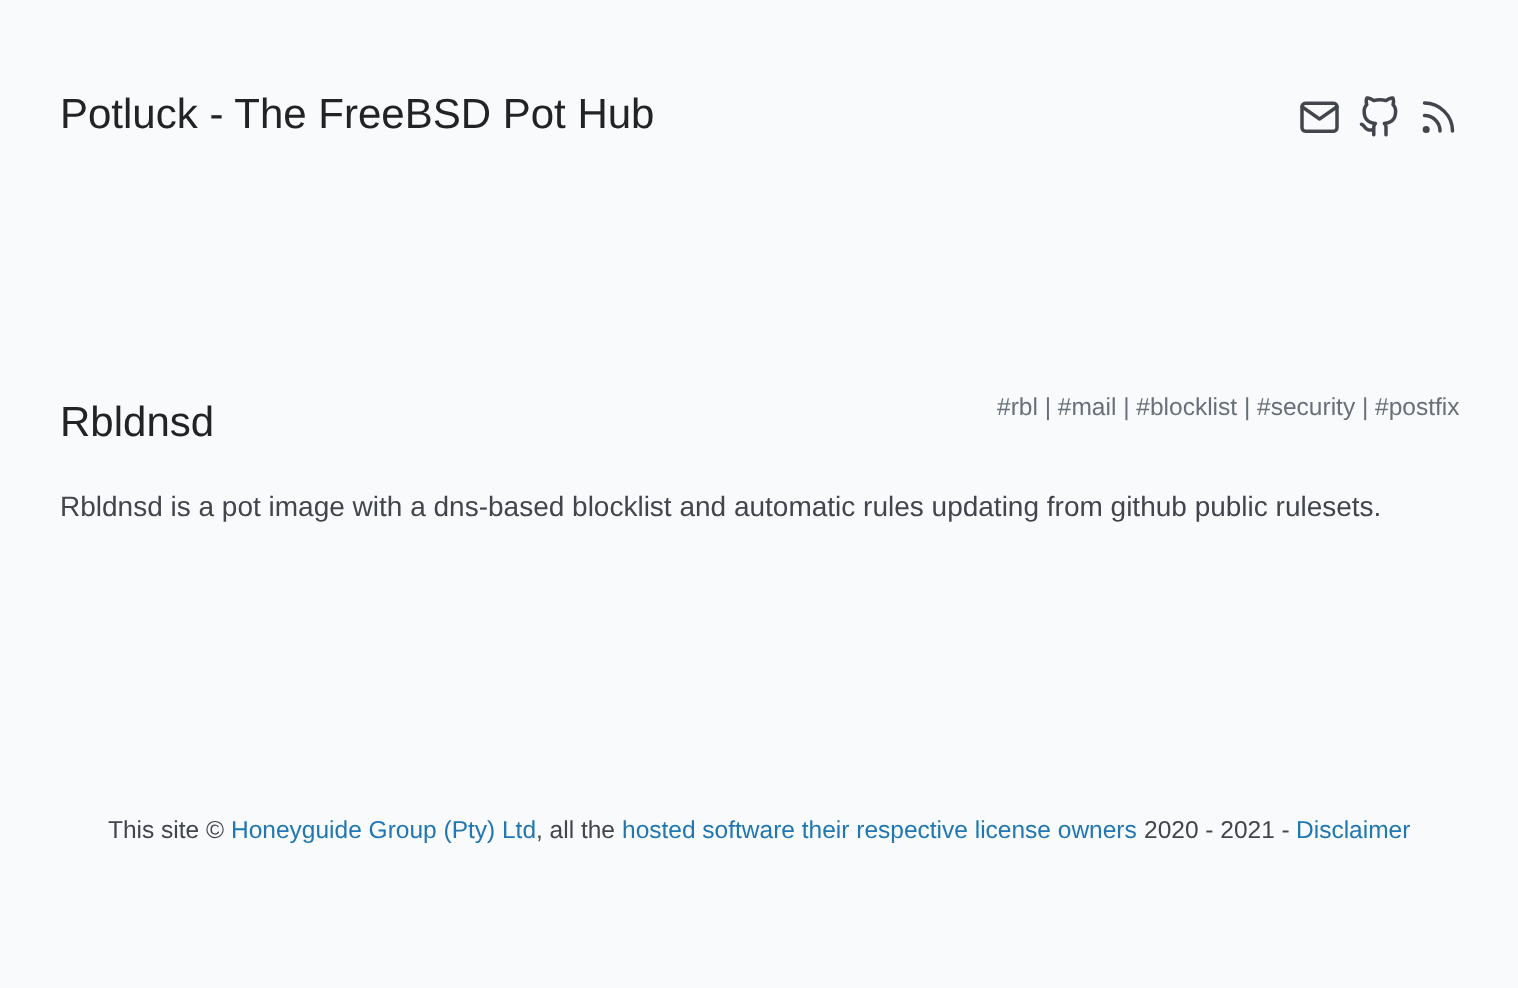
<?xml version="1.0" encoding="UTF-8"?>
<svg xmlns="http://www.w3.org/2000/svg" width="1518" height="988">
    <rect width="100%" height="100%" fill="#F9FAFB"/>
    <text x="60" y="128" font-family="Liberation Sans" font-size="42" fill="#222324">Potluck - The FreeBSD Pot Hub</text>
    <image x="1300" y="101" width="39" height="32" href="img_01.png"/>
    <image x="1359" y="96" width="39" height="41" href="img_02.png"/>
    <path d="M 1424.5 115.5 C 1433 115.5 1440 122.5 1440 131 M 1424.5 103 C 1440 103 1452.5 116 1452.5 131" fill="none" stroke="#42464C" stroke-width="3.5" stroke-linecap="round" stroke-linejoin="round"/>
    <circle cx="1426.2" cy="129.5" r="1.8" fill="none" stroke="#42464C" stroke-width="3.5"/>
    <text x="60" y="436" font-family="Liberation Sans" font-size="42" fill="#222324">Rbldnsd</text>
    <text x="997" y="415" font-family="Liberation Sans" font-size="24.5" fill="#69707A">#rbl | #mail | #blocklist | #security | #postfix</text>
    <text x="60" y="516" font-family="Liberation Sans" font-size="28" fill="#42464C">Rbldnsd is a pot image with a dns-based blocklist and automatic rules updating from github public rulesets.</text>
    <text x="108" y="838" font-family="Liberation Sans" font-size="24.5" fill="#42464C">This site ©</text>
    <text x="231" y="838" font-family="Liberation Sans" font-size="24.5" fill="#2077B2">Honeyguide Group (Pty) Ltd</text>
    <text x="536" y="838" font-family="Liberation Sans" font-size="24.5" fill="#42464C">, all the</text>
    <text x="622" y="838" font-family="Liberation Sans" font-size="24.5" fill="#2077B2">hosted software their respective license owners</text>
    <text x="1144" y="838" font-family="Liberation Sans" font-size="24.5" fill="#42464C">2020 - 2021 -</text>
    <text x="1296" y="838" font-family="Liberation Sans" font-size="24.5" fill="#2077B2">Disclaimer</text>
</svg>
